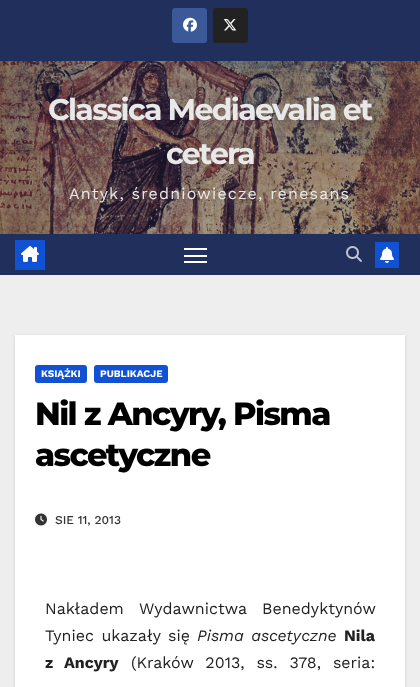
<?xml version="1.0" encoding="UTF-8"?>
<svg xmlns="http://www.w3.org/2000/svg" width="420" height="687">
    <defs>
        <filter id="blur1" x="-50%" y="-200%" width="200%" height="500%"><feGaussianBlur stdDeviation="1.5"/></filter>
    </defs>
    <rect width="100%" height="100%" fill="#EEEEEE"/>
    <rect x="0" y="0" width="420" height="61" fill="#202F5B"/>
    <rect x="172" y="8" width="35" height="35" rx="3" fill="#3B5998"/>
    <image x="183" y="17" width="14" height="15" href="img_01.png"/>
    <rect x="213" y="8" width="35" height="35" rx="3" fill="#222222"/>
    <image x="223" y="19" width="14" height="12" href="img_02.png"/>
    <image x="0" y="61" width="420" height="173" href="img_03.png"/>
    <text x="48" y="120" font-family="Montserrat" font-size="30" font-weight="700" letter-spacing="-1.7" fill="#E8E8E8">Classica Mediaevalia et</text>
    <text x="166" y="164" font-family="Montserrat" font-size="30" font-weight="700" letter-spacing="-1.7" fill="#E8E8E8">cetera</text>
    <text x="69" y="199" font-family="Work Sans" font-size="16" letter-spacing="1.2" fill="#E8E8E8">Antyk, średniowiecze, renesans</text>
    <rect x="0" y="234" width="420" height="41" fill="#202F5B"/>
    <rect x="15" y="240" width="30" height="30" fill="#1151D3"/>
    <image x="21" y="246" width="18" height="16" href="img_04.png"/>
    <rect x="184" y="248" width="23" height="2" fill="#FFFFFF"/>
    <rect x="184" y="255" width="23" height="2" fill="#FFFFFF"/>
    <rect x="184" y="261" width="23" height="2" fill="#FFFFFF"/>
    <image x="346" y="246" width="16" height="16" href="img_05.png"/>
    <rect x="375" y="242" width="24" height="26" fill="#1151D3"/>
    <image x="380" y="247" width="14" height="16" href="img_06.png"/>
    <rect x="15" y="336" width="390" height="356" fill="#000000" fill-opacity="0.15" filter="url(#blur1)"/>
    <rect x="15" y="335" width="390" height="352" fill="#FFFFFF"/>
    <rect x="35" y="365" width="52" height="18" rx="3" fill="#1151D3"/>
    <text x="41" y="377" font-family="Work Sans" font-size="10" font-weight="700" fill="#FFFFFF">KSIĄŻKI</text>
    <rect x="94" y="365" width="74" height="18" rx="3" fill="#1151D3"/>
    <text x="100" y="377" font-family="Work Sans" font-size="10" font-weight="700" fill="#FFFFFF">PUBLIKACJE</text>
    <text font-family="Montserrat" font-size="32" font-weight="800" letter-spacing="-1.6" fill="#000000">
        <tspan x="35" y="425">Nil z Ancyry, Pisma</tspan>
        <tspan x="35" y="466">ascetyczne</tspan>
    </text>
    <image x="35" y="513" width="12" height="13" href="img_07.png"/>
    <text x="55" y="524" font-family="Work Sans" font-size="12" font-weight="500" fill="#333333">SIE 11, 2013</text>
    <text font-family="Work Sans" font-size="16" fill="#222222">
        <tspan x="45" y="614" word-spacing="10">Nakładem Wydawnictwa Benedyktynów</tspan>
        <tspan x="45" y="641" word-spacing="2">Tyniec ukazały się</tspan>
    </text>
    <text x="197" y="641" word-spacing="2" font-family="Work Sans" font-size="16" font-style="italic" fill="#222222">Pisma ascetyczne</text>
    <text x="344" y="641" font-family="Work Sans" font-size="16" font-weight="700" fill="#222222">Nila</text>
    <text x="45" y="668" word-spacing="6.5" font-family="Work Sans" font-size="16" font-weight="700" fill="#222222">z Ancyry</text>
    <text x="131" y="668" word-spacing="6.5" font-family="Work Sans" font-size="16" fill="#222222">(Kraków 2013, ss. 378, seria:</text>
</svg>
